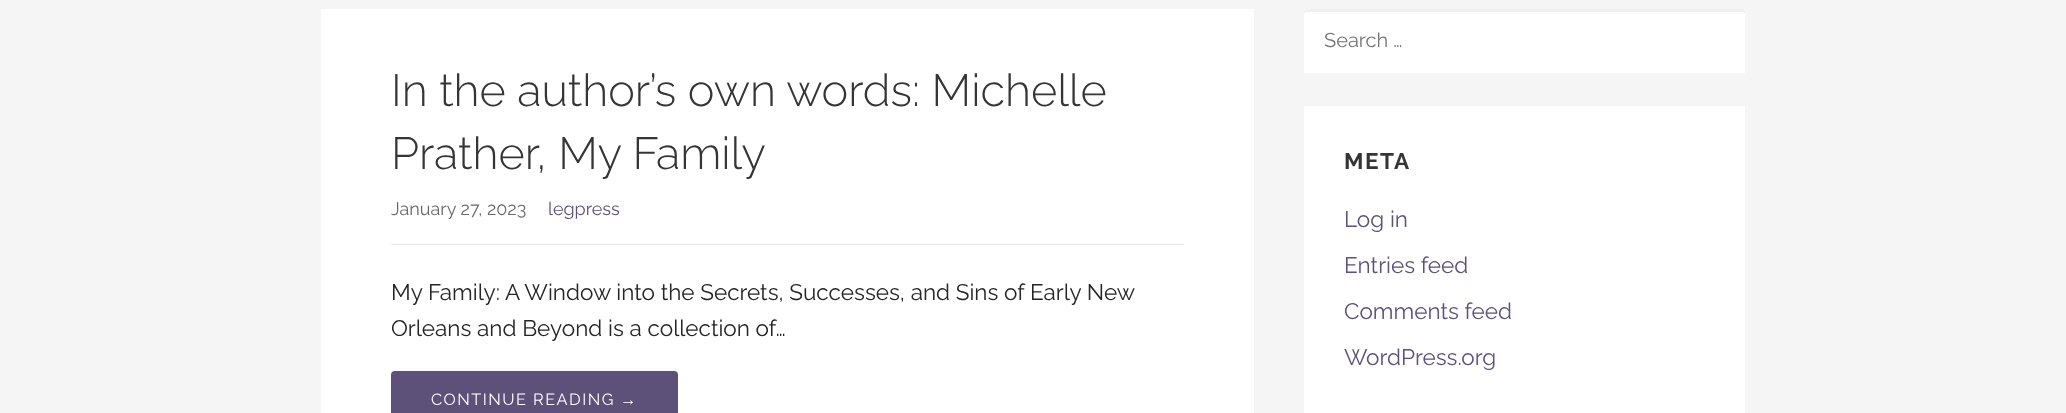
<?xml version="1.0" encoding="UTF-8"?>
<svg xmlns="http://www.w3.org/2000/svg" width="2066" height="413">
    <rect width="100%" height="100%" fill="#F5F5F5"/>
    <rect x="321" y="9" width="933" height="404" fill="#FFFFFF"/>
    <text font-family="Raleway" font-size="45" font-weight="300" fill="#353535">
        <tspan x="391" y="106">In the author’s own words: Michelle</tspan>
        <tspan x="391" y="169">Prather, My Family</tspan>
    </text>
    <rect x="391" y="244" width="793" height="1" fill="#E6E6E6"/>
    <text x="391" y="215" font-family="Raleway" font-size="18" fill="#686868">January 27, 2023</text>
    <text x="548" y="215" font-family="Raleway" font-size="18" fill="#5D5179">legpress</text>
    <text font-family="Raleway" font-size="22.5" fill="#252525">
        <tspan x="391" y="300">My Family: A Window into the Secrets, Successes, and Sins of Early New</tspan>
        <tspan x="391" y="336">Orleans and Beyond is a collection of…</tspan>
    </text>
    <rect x="391" y="371" width="287" height="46" rx="4" fill="#5D5179"/>
    <text x="431" y="405" font-family="Raleway" font-size="16.25" letter-spacing="1.5" fill="#FFFFFF">CONTINUE READING</text>
    <text x="620" y="405" font-family="Liberation Sans" font-size="16.25" letter-spacing="1.5" fill="#FFFFFF">→</text>
    <rect x="1304" y="9" width="441" height="64" fill="#FFFFFF"/>
    <path d="M 1306 12 H 1742 C 1744 12 1745 14 1745 15 C 1745 13 1746 9 1742 9 H 1306 C 1303 9 1304 13 1304 15 C 1304 14 1305 12 1306 12 Z" fill="#F0F0F0"/>
    <text x="1324" y="47" font-family="Raleway" font-size="20" fill="#757575">Search …</text>
    <rect x="1304" y="106" width="441" height="307" fill="#FFFFFF"/>
    <text x="1344" y="169" font-family="Raleway" font-size="22.5" font-weight="700" letter-spacing="1.5" fill="#353535">META</text>
    <text x="1344" y="227" font-family="Raleway" font-size="22.5" fill="#5D5179">Log in</text>
    <text x="1344" y="273" font-family="Raleway" font-size="22.5" fill="#5D5179">Entries feed</text>
    <text x="1344" y="319" font-family="Raleway" font-size="22.5" fill="#5D5179">Comments feed</text>
    <text x="1344" y="365" font-family="Raleway" font-size="22.5" fill="#5D5179">WordPress.org</text>
</svg>
